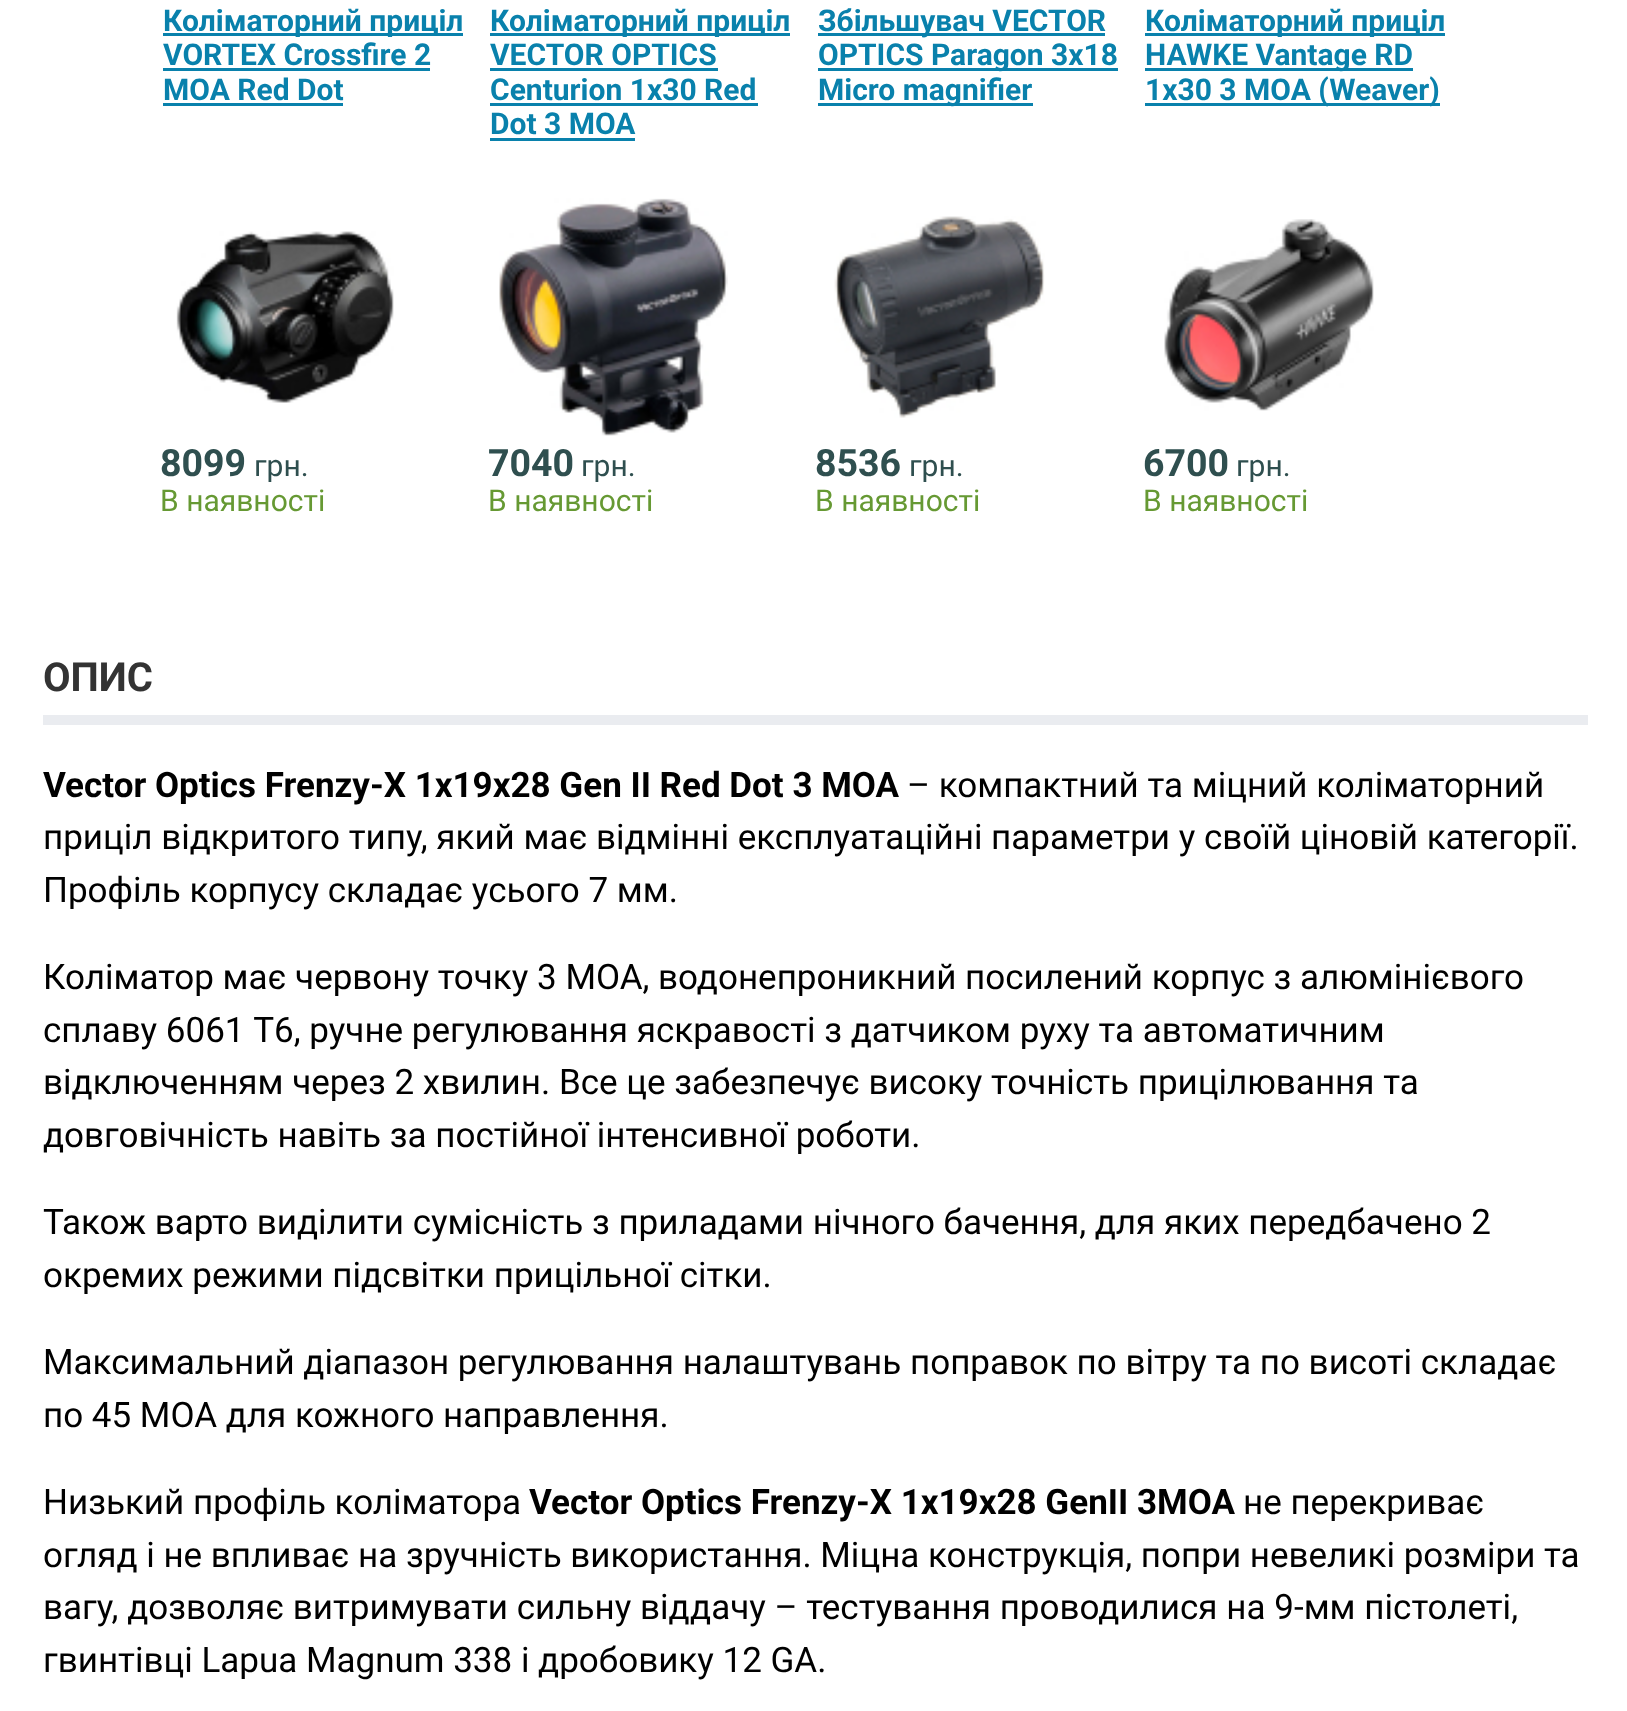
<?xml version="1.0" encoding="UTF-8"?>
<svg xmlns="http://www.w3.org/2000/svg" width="1627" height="1711">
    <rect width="100%" height="100%" fill="#FFFFFF"/>
    <rect x="163" y="33" width="300" height="3" fill="#0981AC"/>
    <text font-family="Roboto" font-size="30" font-weight="700" fill="#0981AC">
        <tspan x="163" y="31">Коліматорний приціл</tspan>
        <tspan x="163" y="65">VORTEX Crossfire 2</tspan>
    </text>
    <rect x="163" y="68" width="267" height="3" fill="#0981AC"/>
    <text x="163" y="100" font-family="Roboto" font-size="30" font-weight="700" fill="#0981AC">MOA Red Dot</text>
    <rect x="163" y="103" width="180" height="3" fill="#0981AC"/>
    <image x="176" y="231" width="218" height="172" href="img_01.png"/>
    <text x="160" y="476" font-family="Roboto" font-size="37.5" font-weight="700" fill="#2F4F4F">8099</text>
    <text x="254" y="476" font-family="Roboto" font-size="30" fill="#2F4F4F">грн.</text>
    <text x="160" y="511" font-family="Roboto" font-size="30" fill="#669933">В наявності</text>
    <rect x="490" y="33" width="300" height="3" fill="#0981AC"/>
    <text font-family="Roboto" font-size="30" font-weight="700" fill="#0981AC">
        <tspan x="490" y="31">Коліматорний приціл</tspan>
        <tspan x="490" y="65">VECTOR OPTICS</tspan>
    </text>
    <rect x="490" y="68" width="228" height="3" fill="#0981AC"/>
    <text x="490" y="100" font-family="Roboto" font-size="30" font-weight="700" fill="#0981AC">Centurion 1x30 Red</text>
    <rect x="490" y="103" width="268" height="3" fill="#0981AC"/>
    <text x="490" y="134" font-family="Roboto" font-size="30" font-weight="700" fill="#0981AC">Dot 3 MOA</text>
    <rect x="490" y="138" width="145" height="3" fill="#0981AC"/>
    <image x="499" y="198" width="229" height="238" href="img_02.png"/>
    <text x="488" y="476" font-family="Roboto" font-size="37.5" font-weight="700" fill="#2F4F4F">7040</text>
    <text x="581" y="476" font-family="Roboto" font-size="30" fill="#2F4F4F">грн.</text>
    <text x="488" y="511" font-family="Roboto" font-size="30" fill="#669933">В наявності</text>
    <rect x="818" y="33" width="287" height="3" fill="#0981AC"/>
    <text x="818" y="31" font-family="Roboto" font-size="30" font-weight="700" fill="#0981AC">Збільшувач VECTOR</text>
    <rect x="818" y="68" width="300" height="3" fill="#0981AC"/>
    <text x="818" y="65" font-family="Roboto" font-size="30" font-weight="700" fill="#0981AC">OPTICS Paragon 3x18</text>
    <rect x="818" y="103" width="215" height="3" fill="#0981AC"/>
    <text x="818" y="100" font-family="Roboto" font-size="30" font-weight="700" fill="#0981AC">Micro magnifier</text>
    <image x="834" y="216" width="211" height="202" href="img_03.png"/>
    <text x="815" y="476" font-family="Roboto" font-size="37.5" font-weight="700" fill="#2F4F4F">8536</text>
    <text x="909" y="476" font-family="Roboto" font-size="30" fill="#2F4F4F">грн.</text>
    <text x="815" y="511" font-family="Roboto" font-size="30" fill="#669933">В наявності</text>
    <rect x="1145" y="33" width="300" height="3" fill="#0981AC"/>
    <text x="1145" y="31" font-family="Roboto" font-size="30" font-weight="700" fill="#0981AC">Коліматорний приціл</text>
    <rect x="1145" y="68" width="268" height="3" fill="#0981AC"/>
    <text x="1145" y="65" font-family="Roboto" font-size="30" font-weight="700" fill="#0981AC">HAWKE Vantage RD</text>
    <rect x="1145" y="103" width="295" height="3" fill="#0981AC"/>
    <text x="1145" y="100" font-family="Roboto" font-size="30" font-weight="700" fill="#0981AC">1x30 3 MOA (Weaver)</text>
    <image x="1164" y="219" width="210" height="192" href="img_04.png"/>
    <text x="1143" y="476" font-family="Roboto" font-size="37.5" font-weight="700" fill="#2F4F4F">6700</text>
    <text x="1236" y="476" font-family="Roboto" font-size="30" fill="#2F4F4F">грн.</text>
    <text x="1143" y="511" font-family="Roboto" font-size="30" fill="#669933">В наявності</text>
    <rect x="43" y="715" width="1545" height="10" fill="#EAECF0"/>
    <text x="43" y="691" font-family="Roboto" font-size="40" font-weight="700" fill="#333333">ОПИС</text>
    <text x="43" y="797" font-family="Roboto" font-size="35" font-weight="700" fill="#000000">Vector Optics Frenzy-X 1x19x28 Gen II Red Dot 3 MOA</text>
    <text x="907" y="797" font-family="Roboto" font-size="35" fill="#000000">– компактний та міцний коліматорний</text>
    <text font-family="Roboto" font-size="35" fill="#000000">
        <tspan x="43" y="849">приціл відкритого типу, який має відмінні експлуатаційні параметри у своїй ціновій категорії.</tspan>
        <tspan x="43" y="902">Профіль корпусу складає усього 7 мм.</tspan>
    </text>
    <text font-family="Roboto" font-size="35" fill="#000000">
        <tspan x="43" y="989">Коліматор має червону точку 3 MOA, водонепроникний посилений корпус з алюмінієвого</tspan>
        <tspan x="43" y="1042">сплаву 6061 T6, ручне регулювання яскравості з датчиком руху та автоматичним</tspan>
        <tspan x="43" y="1094">відключенням через 2 хвилин. Все це забезпечує високу точність прицілювання та</tspan>
        <tspan x="43" y="1147">довговічність навіть за постійної інтенсивної роботи.</tspan>
    </text>
    <text font-family="Roboto" font-size="35" fill="#000000">
        <tspan x="43" y="1234">Також варто виділити сумісність з приладами нічного бачення, для яких передбачено 2</tspan>
        <tspan x="43" y="1287">окремих режими підсвітки прицільної сітки.</tspan>
    </text>
    <text font-family="Roboto" font-size="35" fill="#000000">
        <tspan x="43" y="1374">Максимальний діапазон регулювання налаштувань поправок по вітру та по висоті складає</tspan>
        <tspan x="43" y="1427">по 45 MOA для кожного направлення.</tspan>
    </text>
    <text x="43" y="1514" font-family="Roboto" font-size="35" fill="#000000">Низький профіль коліматора</text>
    <text x="529" y="1514" font-family="Roboto" font-size="35" font-weight="700" fill="#000000">Vector Optics Frenzy-X 1x19x28 GenII 3MOA</text>
    <text x="1243" y="1514" font-family="Roboto" font-size="35" fill="#000000">не перекриває</text>
    <text font-family="Roboto" font-size="35" fill="#000000">
        <tspan x="43" y="1567">огляд і не впливає на зручність використання. Міцна конструкція, попри невеликі розміри та</tspan>
        <tspan x="43" y="1619" word-spacing="0.1">вагу, дозволяє витримувати сильну віддачу – тестування проводилися на 9-мм пістолеті,</tspan>
        <tspan x="43" y="1672">гвинтівці Lapua Magnum 338 і дробовику 12 GA.</tspan>
    </text>
</svg>
